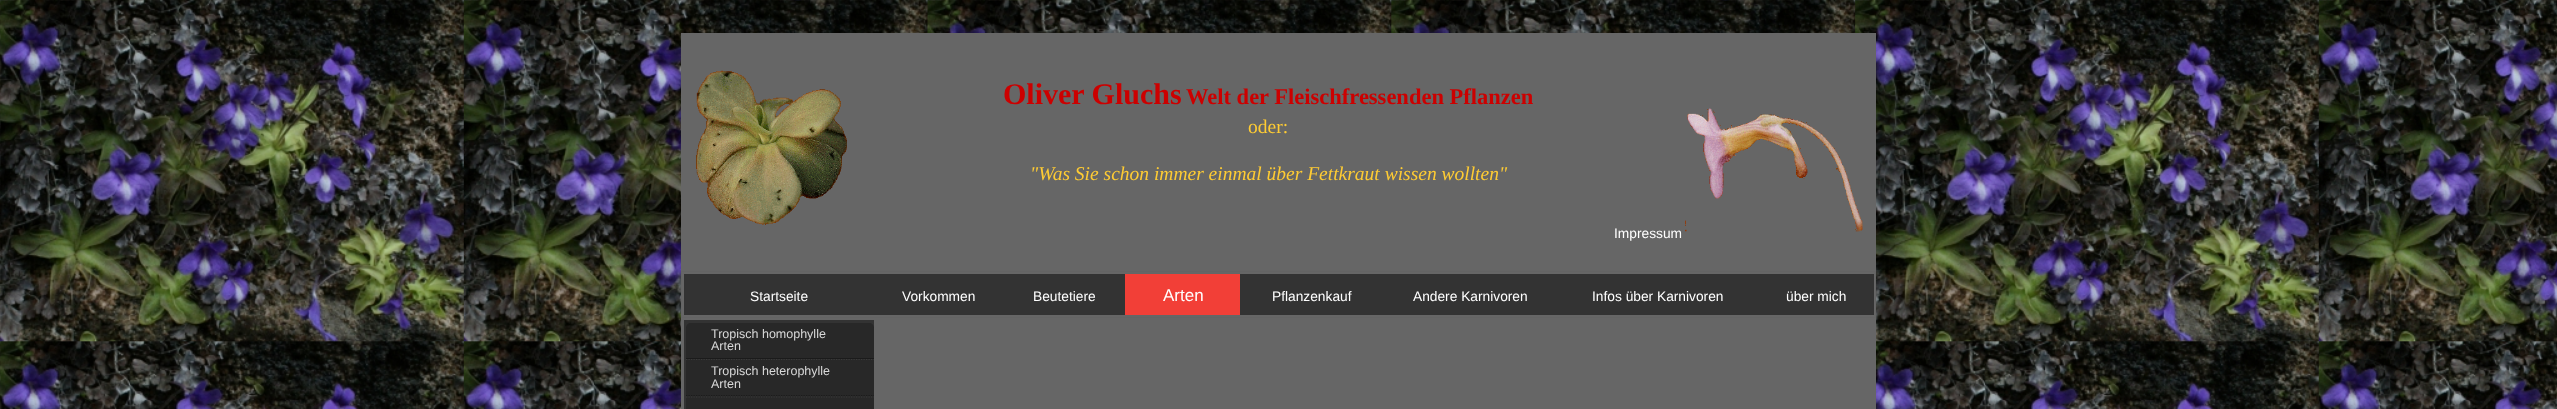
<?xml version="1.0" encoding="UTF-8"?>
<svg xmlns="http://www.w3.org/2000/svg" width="2557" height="409">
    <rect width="100%" height="100%" fill="#FFFFFF"/>
    <image x="0" y="0" width="2557" height="409" href="img_01.png"/>
    <rect x="681" y="33" width="1195" height="238" fill="#666666"/>
    <image x="696" y="70" width="151" height="155" href="img_02.png"/>
    <text x="1003" y="104" font-family="Liberation Serif" font-size="30" font-weight="700" fill="#CC0000">Oliver Gluchs</text>
    <text x="1186" y="104" font-family="Liberation Serif" font-size="22.5" font-weight="700" fill="#CC0000">Welt der Fleischfressenden Pflanzen</text>
    <text x="1248" y="133" font-family="Liberation Serif" font-size="19.5" fill="#FFCC33">oder:</text>
    <text x="1030" y="180" font-family="Liberation Serif" font-size="19.5" font-style="italic" fill="#FFCC33">"Was Sie schon immer einmal über Fettkraut wissen wollten"</text>
    <text x="1614" y="238" font-family="Liberation Sans" font-size="13.75" fill="#FFFFFF">Impressum</text>
    <image x="1685" y="108" width="178" height="124" href="img_03.png"/>
    <rect x="681.5" y="271.5" width="1194" height="46" fill="#666666" stroke="#646464"/>
    <rect x="684" y="274" width="1190" height="41" fill="#333333"/>
    <text x="750" y="301" font-family="Liberation Sans" font-size="13.75" fill="#FFFFFF">Startseite</text>
    <text x="902" y="301" font-family="Liberation Sans" font-size="13.75" fill="#FFFFFF">Vorkommen</text>
    <text x="1033" y="301" font-family="Liberation Sans" font-size="13.75" fill="#FFFFFF">Beutetiere</text>
    <rect x="1125" y="274" width="115" height="41" fill="#F23F37"/>
    <text x="1163" y="301" font-family="Liberation Sans" font-size="17" fill="#FFFFFF">Arten</text>
    <text x="1272" y="301" font-family="Liberation Sans" font-size="13.75" fill="#FFFFFF">Pflanzenkauf</text>
    <text x="1413" y="301" font-family="Liberation Sans" font-size="13.75" fill="#FFFFFF">Andere Karnivoren</text>
    <text x="1592" y="301" font-family="Liberation Sans" font-size="13.75" fill="#FFFFFF">Infos über Karnivoren</text>
    <text x="1786" y="301" font-family="Liberation Sans" font-size="13.75" fill="#FFFFFF">über mich</text>
    <rect x="681" y="318" width="1195" height="91" fill="#666666"/>
    <rect x="684" y="320" width="190" height="89" fill="#333333"/>
    <path d="M 691 323 H 869 C 872 323 874 325 874 328 V 359 H 686 V 328 C 686 325 688 323 691 323 Z" fill="#282828"/>
    <rect x="686" y="358" width="188" height="1" fill="#1B1B1B"/>
    <text font-family="Liberation Sans" font-size="12.5" fill="#D8D8D8">
        <tspan x="711" y="338">Tropisch homophylle</tspan>
        <tspan x="711" y="350">Arten</tspan>
    </text>
    <rect x="686" y="359" width="188" height="37" fill="#282828"/>
    <path d="M 686 359.5 H 874" fill="none" stroke="#3A3A3A" stroke-width="1.2" stroke-dasharray="1.25 1.25"/>
    <path d="M 686 395.5 H 874" fill="none" stroke="#1B1B1B" stroke-width="1.2" stroke-dasharray="1.25 1.25"/>
    <text font-family="Liberation Sans" font-size="12.5" fill="#D8D8D8">
        <tspan x="711" y="375">Tropisch heterophylle</tspan>
        <tspan x="711" y="388">Arten</tspan>
    </text>
    <rect x="686" y="396" width="188" height="13" fill="#282828"/>
    <path d="M 686 397 H 874" fill="none" stroke="#3A3A3A" stroke-width="1.2" stroke-dasharray="1.25 1.25"/>
</svg>
